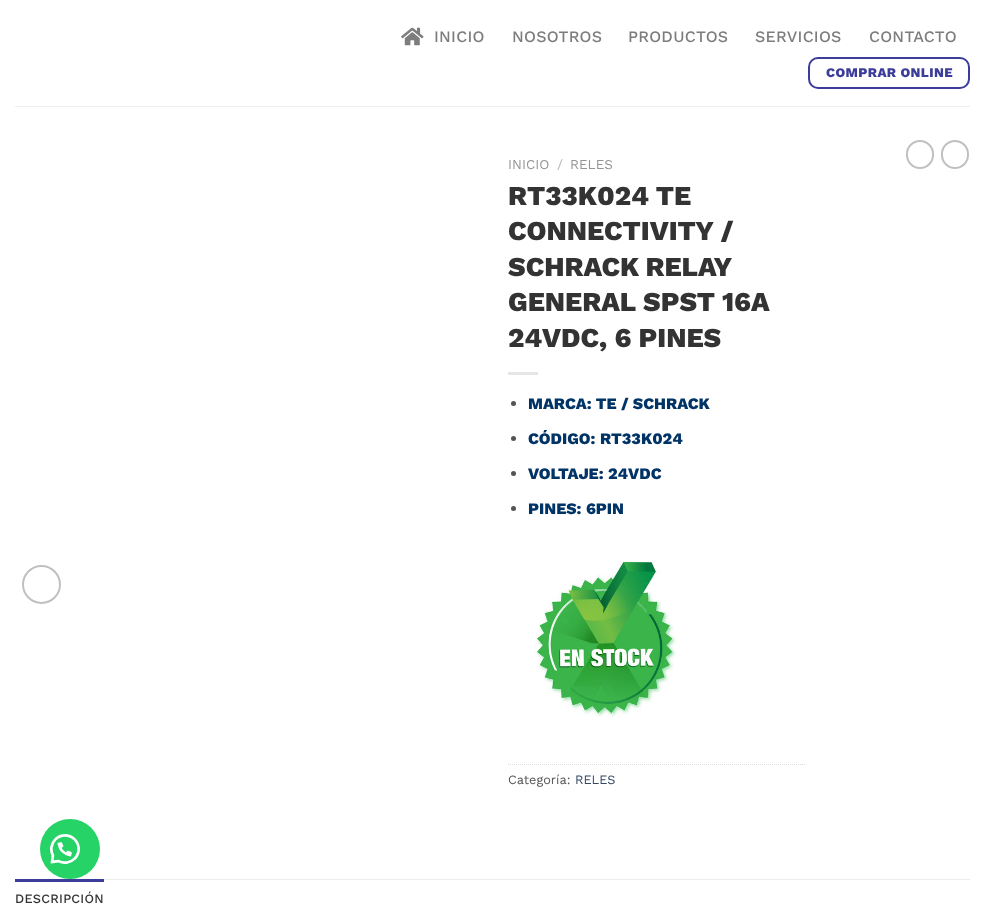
<?xml version="1.0" encoding="UTF-8"?>
<svg xmlns="http://www.w3.org/2000/svg" width="985" height="919">
    <rect width="100%" height="100%" fill="#FFFFFF"/>
    <image x="401" y="27" width="23" height="19" href="img_01.png"/>
    <text x="434" y="42" font-family="Work Sans" font-size="16" font-weight="500" letter-spacing="0.25" fill="#7D7D7D">INICIO</text>
    <text x="512" y="42" font-family="Work Sans" font-size="16" font-weight="500" letter-spacing="0.25" fill="#7D7D7D">NOSOTROS</text>
    <text x="628" y="42" font-family="Work Sans" font-size="16" font-weight="500" letter-spacing="0.25" fill="#7D7D7D">PRODUCTOS</text>
    <text x="755" y="42" font-family="Work Sans" font-size="16" font-weight="500" letter-spacing="0.25" fill="#7D7D7D">SERVICIOS</text>
    <text x="869" y="42" font-family="Work Sans" font-size="16" font-weight="500" letter-spacing="0.25" fill="#7D7D7D">CONTACTO</text>
    <rect x="809" y="58" width="160" height="30" rx="9" fill="none" stroke="#3C3D9A" stroke-width="2"/>
    <text x="826" y="77" font-family="Work Sans" font-size="13.25" font-weight="800" letter-spacing="0.4" fill="#3C3D9A">COMPRAR ONLINE</text>
    <rect x="15" y="106" width="955" height="1" fill="#EEEEEE"/>
    <rect x="907" y="141" width="26" height="27" rx="13" fill="none" stroke="#C0C0C0" stroke-width="2"/>
    <rect x="942" y="141" width="26" height="27" rx="13" fill="none" stroke="#C0C0C0" stroke-width="2"/>
    <circle cx="41.5" cy="584.5" r="18.5" fill="none" stroke="#C0C0C0" stroke-width="2"/>
    <text x="508" y="169" font-family="Work Sans" font-size="13.5" fill="#949494">INICIO</text>
    <text x="557" y="169" font-family="Work Sans" font-size="13.5" fill="#B2B2B2">/</text>
    <text x="570" y="169" font-family="Work Sans" font-size="13.5" fill="#949494">RELES</text>
    <text font-family="Work Sans" font-size="27.25" font-weight="800" fill="#333333">
        <tspan x="508" y="205">RT33K024 TE</tspan>
        <tspan x="508" y="240">CONNECTIVITY /</tspan>
        <tspan x="508" y="276" word-spacing="-1">SCHRACK RELAY</tspan>
        <tspan x="508" y="311">GENERAL SPST 16A</tspan>
        <tspan x="508" y="347">24VDC, 6 PINES</tspan>
    </text>
    <rect x="508" y="372" width="30" height="3" fill="#E6E6E6"/>
    <circle cx="513.5" cy="403.5" r="2.5" fill="#545454"/>
    <text x="528" y="409" font-family="Work Sans" font-size="16" font-weight="800" fill="#003366">MARCA: TE / SCHRACK</text>
    <circle cx="513.5" cy="438.5" r="2.5" fill="#545454"/>
    <text x="528" y="444" font-family="Work Sans" font-size="16" font-weight="800" fill="#003366">CÓDIGO: RT33K024</text>
    <circle cx="513.5" cy="473.5" r="2.5" fill="#545454"/>
    <text x="528" y="479" font-family="Work Sans" font-size="16" font-weight="800" fill="#003366">VOLTAJE: 24VDC</text>
    <circle cx="513.5" cy="508.5" r="2.5" fill="#545454"/>
    <text x="528" y="514" font-family="Work Sans" font-size="16" font-weight="800" fill="#003366">PINES: 6PIN</text>
    <image x="535" y="561" width="141" height="156" href="img_02.png"/>
    <path d="M 508 764.5 H 806" fill="none" stroke="#DDDDDD" stroke-dasharray="1 1"/>
    <text x="508" y="784" font-family="Work Sans" font-size="12.75" fill="#545454">Categoría:</text>
    <text x="575" y="784" font-family="Work Sans" font-size="12.75" fill="#334862">RELES</text>
    <rect x="104" y="879" width="866" height="1" fill="#ECECEC"/>
    <rect x="15" y="879" width="89" height="3" fill="#3C3D9A"/>
    <text x="15" y="903" font-family="Work Sans" font-size="12.75" font-weight="500" letter-spacing="0.25" fill="#333333">DESCRIPCIÓN</text>
    <circle cx="70" cy="849" r="30" fill="#25D366"/>
    <image x="50" y="834" width="30" height="30" href="img_03.png"/>
</svg>
